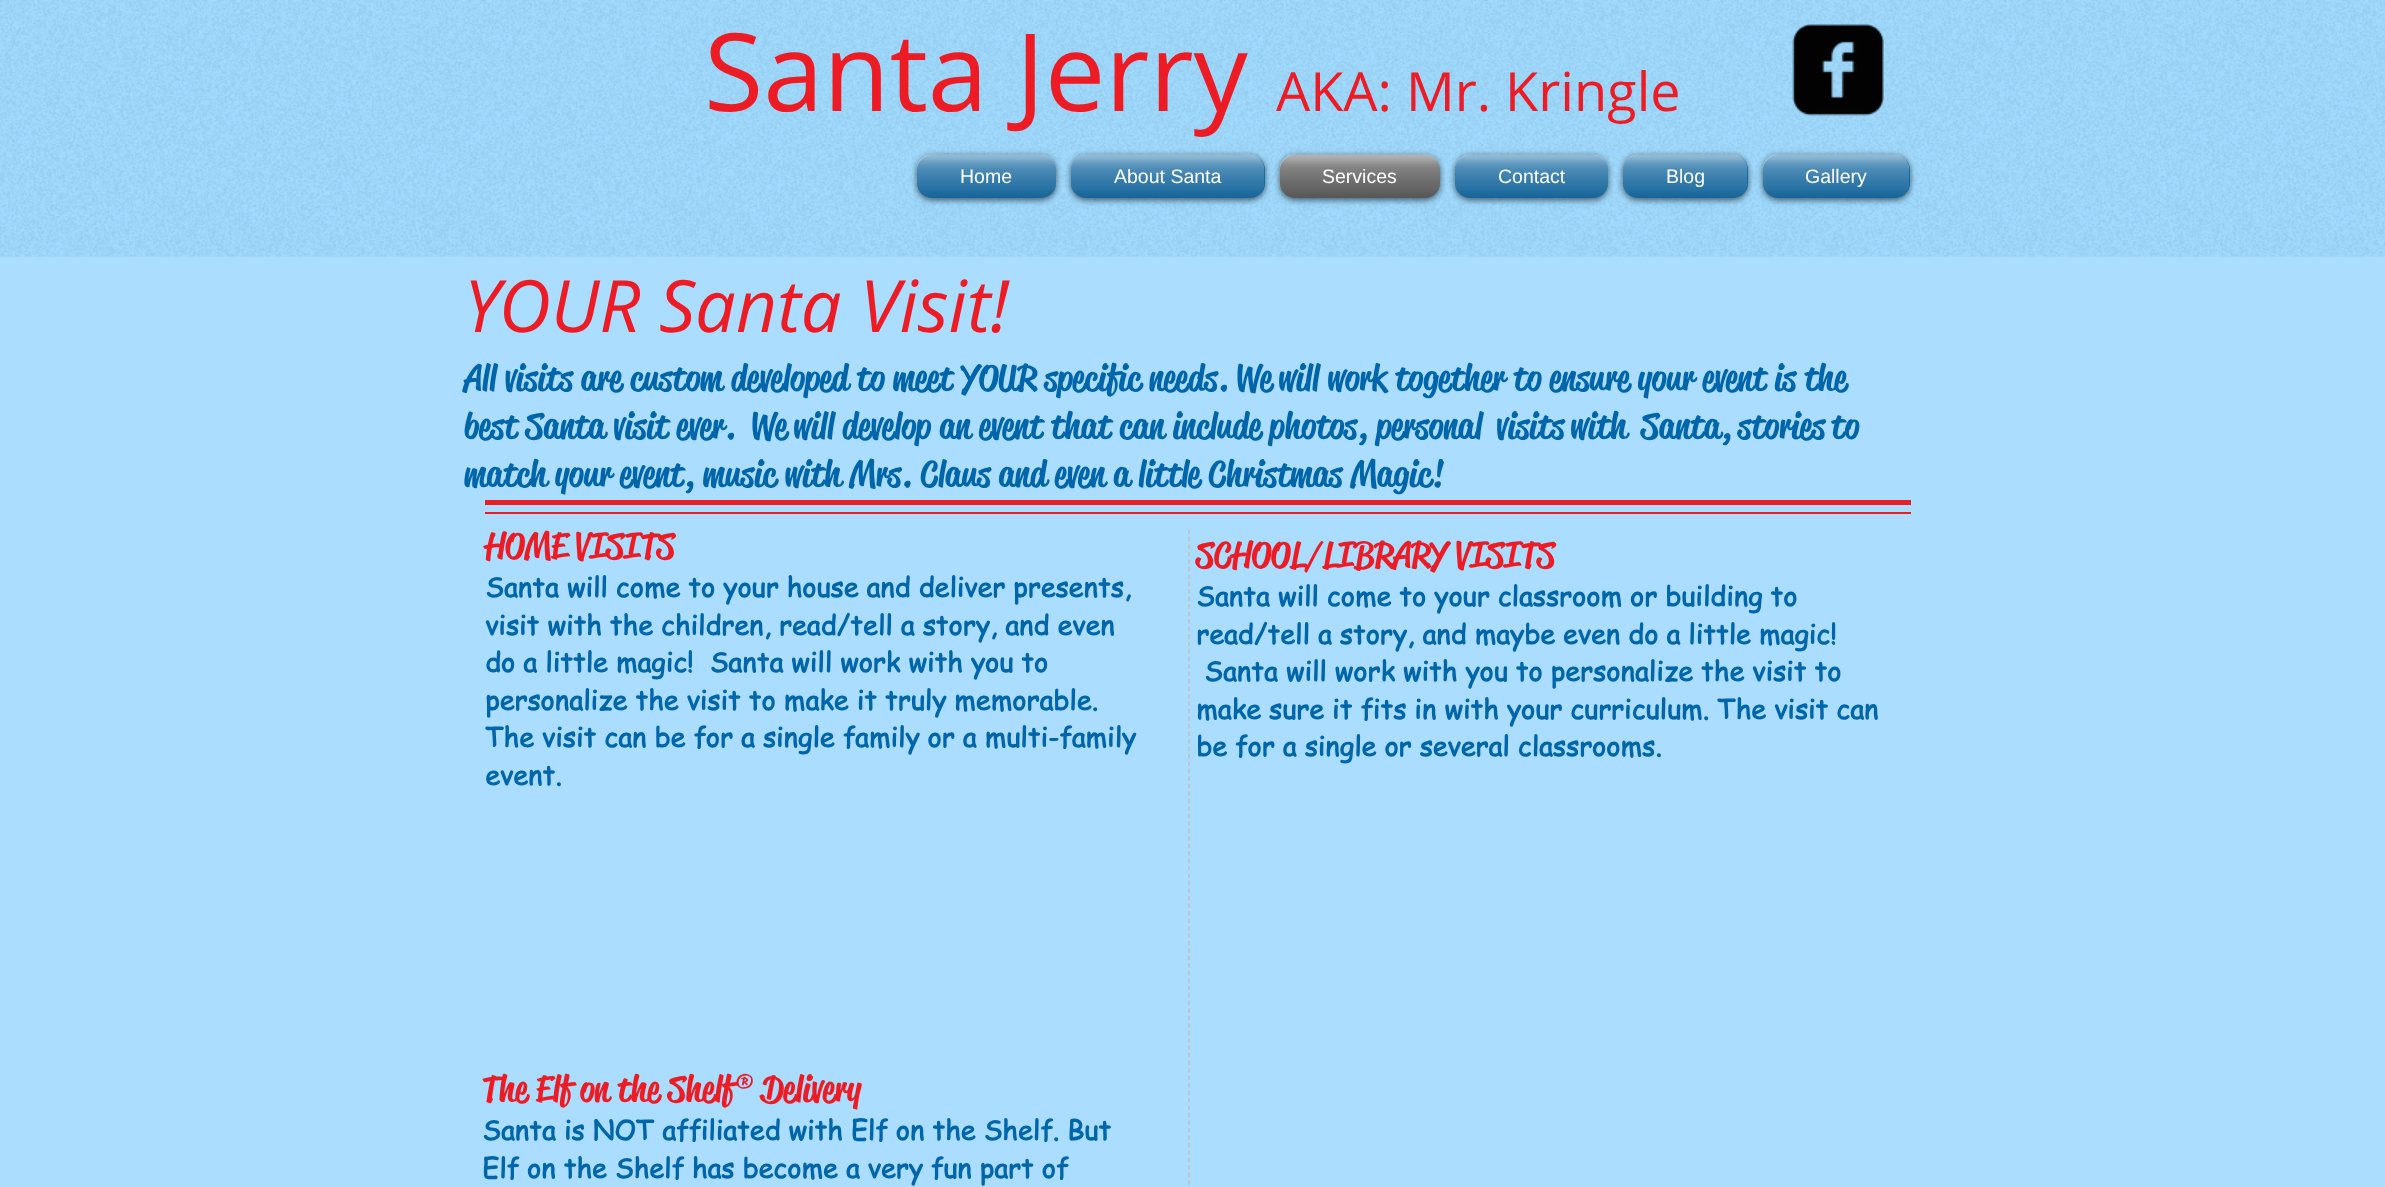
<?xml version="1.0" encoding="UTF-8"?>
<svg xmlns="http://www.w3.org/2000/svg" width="2385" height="1187">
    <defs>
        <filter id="blur1" x="-50%" y="-200%" width="200%" height="500%"><feGaussianBlur stdDeviation="3"/></filter>
    </defs>
    <rect width="100%" height="100%" fill="#AADDFF"/>
    <rect x="0" y="0" width="2385" height="257" fill="#A0DBFF"/>
    <image x="0" y="0" width="2385" height="257" href="img_01.png"/>
    <text x="704" y="111" font-family="Open Sans" font-size="108" fill="#ED1C24">Santa Jerry</text>
    <text x="1276" y="111" font-family="Open Sans" font-size="54" fill="#ED1C24">AKA: Mr. Kringle</text>
    <image x="1792" y="24" width="92" height="92" href="img_02.png"/>
    <rect x="917" y="156" width="139" height="44" rx="15" fill="#000000" fill-opacity="0.6" filter="url(#blur1)"/>
    <rect x="917" y="155" width="139" height="43" rx="15" fill="#0065A9"/>
    <image x="916" y="154" width="140" height="44" href="img_03.png"/>
    <image x="916" y="155" width="140" height="43" href="img_04.png"/>
    <text x="960" y="183" font-family="Liberation Sans" font-size="19.5" fill="#FFFFFF">Home</text>
    <rect x="1071" y="156" width="194" height="44" rx="15" fill="#000000" fill-opacity="0.6" filter="url(#blur1)"/>
    <rect x="1071" y="155" width="194" height="43" rx="15" fill="#0065A9"/>
    <image x="1071" y="154" width="194" height="44" href="img_05.png"/>
    <image x="1071" y="155" width="194" height="43" href="img_06.png"/>
    <text x="1114" y="183" font-family="Liberation Sans" font-size="19.5" fill="#FFFFFF">About Santa</text>
    <rect x="1280" y="156" width="160" height="44" rx="15" fill="#000000" fill-opacity="0.6" filter="url(#blur1)"/>
    <rect x="1280" y="155" width="160" height="43" rx="15" fill="#535353"/>
    <image x="1279" y="154" width="161" height="44" href="img_07.png"/>
    <image x="1279" y="155" width="161" height="43" href="img_08.png"/>
    <text x="1322" y="183" font-family="Liberation Sans" font-size="19.5" fill="#FFFFFF">Services</text>
    <rect x="1455" y="156" width="153" height="44" rx="15" fill="#000000" fill-opacity="0.6" filter="url(#blur1)"/>
    <rect x="1455" y="155" width="153" height="43" rx="15" fill="#0065A9"/>
    <image x="1455" y="154" width="153" height="44" href="img_09.png"/>
    <image x="1455" y="155" width="153" height="43" href="img_10.png"/>
    <text x="1498" y="183" font-family="Liberation Sans" font-size="19.5" fill="#FFFFFF">Contact</text>
    <rect x="1623" y="156" width="125" height="44" rx="15" fill="#000000" fill-opacity="0.6" filter="url(#blur1)"/>
    <rect x="1623" y="155" width="125" height="43" rx="15" fill="#0065A9"/>
    <image x="1623" y="154" width="125" height="44" href="img_11.png"/>
    <image x="1623" y="155" width="125" height="43" href="img_12.png"/>
    <text x="1666" y="183" font-family="Liberation Sans" font-size="19.5" fill="#FFFFFF">Blog</text>
    <rect x="1763" y="156" width="147" height="44" rx="15" fill="#000000" fill-opacity="0.6" filter="url(#blur1)"/>
    <rect x="1763" y="155" width="147" height="43" rx="15" fill="#0065A9"/>
    <image x="1762" y="154" width="148" height="44" href="img_13.png"/>
    <image x="1762" y="155" width="148" height="43" href="img_14.png"/>
    <text x="1805" y="183" font-family="Liberation Sans" font-size="19.5" fill="#FFFFFF">Gallery</text>
    <text x="464" y="332" font-family="Open Sans" font-size="72" font-style="italic" fill="#ED1C24">YOUR Santa Visit!</text>
    <text x="464" y="390" font-family="'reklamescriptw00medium'" font-size="36" font-weight="500" fill="#0065A9">All visits are custom developed to meet YOUR specific needs.</text>
    <text x="1235" y="390" font-family="'reklamescriptw00medium'" font-size="36" font-weight="500" fill="#0065A9">We</text>
    <text x="1278" y="390" font-family="'reklamescriptw00medium'" font-size="36" font-weight="500" fill="#0065A9">will work together to ensure your event is the</text>
    <text x="464" y="438" font-family="'reklamescriptw00medium'" font-size="36" font-weight="500" fill="#0065A9">best Santa visit ever.</text>
    <text x="750" y="438" font-family="'reklamescriptw00medium'" font-size="36" font-weight="500" fill="#0065A9">We</text>
    <text x="793" y="438" font-family="'reklamescriptw00medium'" font-size="36" font-weight="500" fill="#0065A9">will develop an event that can include photos, personal</text>
    <text x="1496" y="438" font-family="'reklamescriptw00medium'" font-size="36" font-weight="500" fill="#0065A9">visits</text>
    <text x="1570" y="438" font-family="'reklamescriptw00medium'" font-size="36" font-weight="500" fill="#0065A9">with</text>
    <text x="1641" y="438" font-family="'reklamescriptw00medium'" font-size="36" font-weight="500" fill="#0065A9">Santa,</text>
    <text x="1738" y="438" font-family="'reklamescriptw00medium'" font-size="36" font-weight="500" fill="#0065A9">stories</text>
    <text x="1831" y="438" font-family="'reklamescriptw00medium'" font-size="36" font-weight="500" fill="#0065A9">to</text>
    <text x="464" y="486" font-family="'reklamescriptw00medium'" font-size="36" font-weight="500" fill="#0065A9">match your event, music with Mrs. Claus and even a little Christmas Magic!</text>
    <rect x="485" y="500" width="1426" height="5" fill="#ED1C24"/>
    <rect x="485" y="512" width="1426" height="2" fill="#ED1C24"/>
    <text x="485" y="558" font-family="'reklamescriptw00medium'" font-size="36" font-weight="500" fill="#ED1C24">HOME VISITS</text>
    <text font-family="'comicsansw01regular'" font-size="27" font-weight="700" fill="#0065A9" xml:space="preserve"><tspan x="485" y="597">Santa will come to your house and deliver presents,</tspan><tspan x="485" y="635">visit with the children, read/tell a story, and even</tspan><tspan x="485" y="672">do a little magic!  Santa will work with you to</tspan><tspan x="485" y="710">personalize the visit to make it truly memorable.</tspan><tspan x="485" y="747">The visit can be for a single family or a multi-family</tspan><tspan x="485" y="785">event.</tspan></text>
    <path d="M 1189 529.5 V 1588.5" fill="none" stroke="#C0C0C0" stroke-width="1.5" stroke-dasharray="4.5 2.98"/>
    <text x="1196" y="567" font-family="'reklamescriptw00medium'" font-size="36" font-weight="500" fill="#ED1C24">SCHOOL/LIBRARY VISITS</text>
    <text font-family="'comicsansw01regular'" font-size="27" font-weight="700" fill="#0065A9">
        <tspan x="1196" y="606">Santa will come to your classroom or building to</tspan>
        <tspan x="1196" y="644">read/tell a story, and maybe even do a little magic!</tspan>
    </text>
    <text x="1204" y="681" font-family="'comicsansw01regular'" font-size="27" font-weight="700" fill="#0065A9">Santa will work with you to personalize the visit to</text>
    <text font-family="'comicsansw01regular'" font-size="27" font-weight="700" fill="#0065A9">
        <tspan x="1196" y="719">make sure it fits in with your curriculum. The visit can</tspan>
        <tspan x="1196" y="756">be for a single or several classrooms.</tspan>
    </text>
    <text x="482" y="1101" font-family="'reklamescriptw00medium'" font-size="36" font-weight="500" fill="#ED1C24">The Elf on the Shelf®</text>
    <text x="761" y="1101" font-family="'reklamescriptw00medium'" font-size="36" font-weight="500" fill="#ED1C24">Delivery</text>
    <text font-family="'comicsansw01regular'" font-size="27" font-weight="700" fill="#0065A9">
        <tspan x="482" y="1140">Santa is NOT affiliated with Elf on the Shelf. But</tspan>
        <tspan x="482" y="1178">Elf on the Shelf has become a very fun part of</tspan>
    </text>
</svg>
